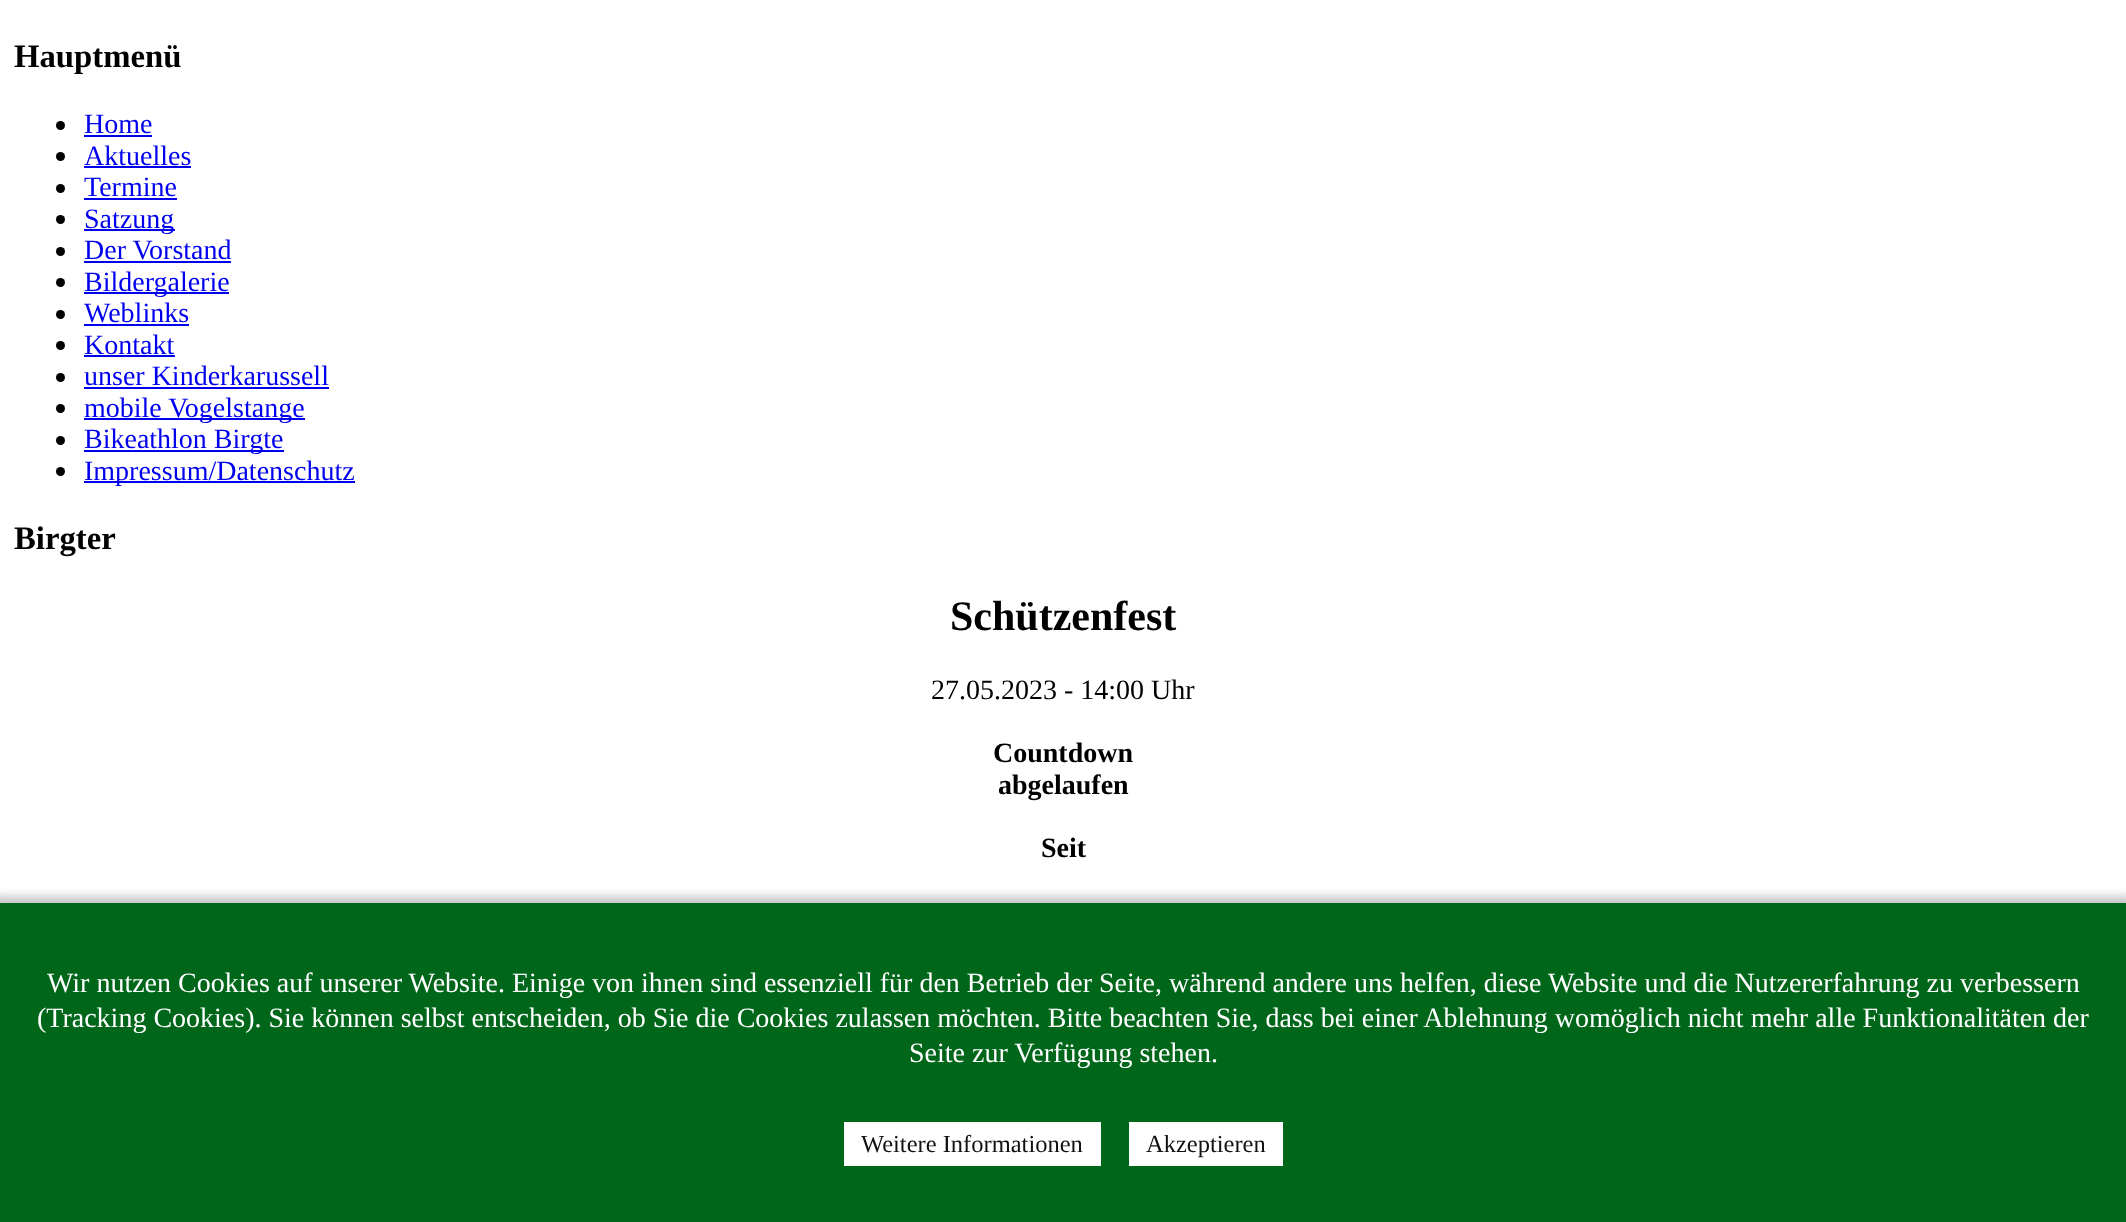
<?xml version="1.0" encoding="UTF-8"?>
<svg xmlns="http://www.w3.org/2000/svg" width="2126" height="1222">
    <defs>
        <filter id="blur1" x="-50%" y="-200%" width="200%" height="500%"><feGaussianBlur stdDeviation="4.5"/></filter>
    </defs>
    <rect width="100%" height="100%" fill="#FFFFFF"/>
    <text x="14" y="67" font-family="Liberation Serif" font-size="32.75" font-weight="700" fill="#000000">Hauptmenü</text>
    <circle cx="60.5" cy="125.5" r="4.5" fill="#000000"/>
    <text x="84" y="133" font-family="Liberation Serif" font-size="28" fill="#0000EE">Home</text>
    <rect x="84" y="135" width="68" height="2" fill="#0000EE"/>
    <circle cx="60.5" cy="156.5" r="4.5" fill="#000000"/>
    <text x="84" y="165" font-family="Liberation Serif" font-size="28" fill="#0000EE">Aktuelles</text>
    <rect x="84" y="166" width="107" height="2" fill="#0000EE"/>
    <circle cx="60.5" cy="188.5" r="4.5" fill="#000000"/>
    <text x="84" y="196" font-family="Liberation Serif" font-size="28" fill="#0000EE">Termine</text>
    <rect x="84" y="198" width="93" height="2" fill="#0000EE"/>
    <circle cx="60.5" cy="219.5" r="4.5" fill="#000000"/>
    <rect x="84" y="229" width="91" height="2" fill="#0000EE"/>
    <text x="84" y="228" font-family="Liberation Serif" font-size="28" fill="#0000EE">Satzung</text>
    <circle cx="60.5" cy="251.5" r="4.5" fill="#000000"/>
    <text x="84" y="259" font-family="Liberation Serif" font-size="28" fill="#0000EE">Der Vorstand</text>
    <rect x="84" y="261" width="147" height="2" fill="#0000EE"/>
    <circle cx="60.5" cy="282.5" r="4.5" fill="#000000"/>
    <rect x="84" y="292" width="145" height="2" fill="#0000EE"/>
    <text x="84" y="291" font-family="Liberation Serif" font-size="28" fill="#0000EE">Bildergalerie</text>
    <circle cx="60.5" cy="314.5" r="4.5" fill="#000000"/>
    <text x="84" y="322" font-family="Liberation Serif" font-size="28" fill="#0000EE">Weblinks</text>
    <rect x="84" y="324" width="105" height="2" fill="#0000EE"/>
    <circle cx="60.5" cy="345.5" r="4.5" fill="#000000"/>
    <text x="84" y="354" font-family="Liberation Serif" font-size="28" fill="#0000EE">Kontakt</text>
    <rect x="84" y="355" width="91" height="2" fill="#0000EE"/>
    <circle cx="60.5" cy="377.5" r="4.5" fill="#000000"/>
    <text x="84" y="385" font-family="Liberation Serif" font-size="28" fill="#0000EE">unser Kinderkarussell</text>
    <rect x="84" y="387" width="245" height="2" fill="#0000EE"/>
    <circle cx="60.5" cy="408.5" r="4.5" fill="#000000"/>
    <rect x="84" y="418" width="221" height="2" fill="#0000EE"/>
    <text x="84" y="417" font-family="Liberation Serif" font-size="28" fill="#0000EE">mobile Vogelstange</text>
    <circle cx="60.5" cy="440.5" r="4.5" fill="#000000"/>
    <rect x="84" y="450" width="200" height="2" fill="#0000EE"/>
    <text x="84" y="448" font-family="Liberation Serif" font-size="28" fill="#0000EE">Bikeathlon Birgte</text>
    <circle cx="60.5" cy="471.5" r="4.5" fill="#000000"/>
    <rect x="84" y="481" width="271" height="2" fill="#0000EE"/>
    <text x="84" y="480" font-family="Liberation Serif" font-size="28" fill="#0000EE">Impressum/Datenschutz</text>
    <text x="14" y="549" font-family="Liberation Serif" font-size="32.75" font-weight="700" fill="#000000">Birgter</text>
    <text x="950" y="630" font-family="Liberation Serif" font-size="42" font-weight="700" fill="#000000">Schützenfest</text>
    <text x="931" y="699" font-family="Liberation Serif" font-size="28" fill="#000000">27.05.2023 - 14:00 Uhr</text>
    <text x="993" y="762" font-family="Liberation Serif" font-size="28" font-weight="700" fill="#000000">Countdown</text>
    <text x="998" y="794" font-family="Liberation Serif" font-size="28" font-weight="700" fill="#000000">abgelaufen</text>
    <text x="1041" y="857" font-family="Liberation Serif" font-size="28" font-weight="700" fill="#000000">Seit</text>
    <rect x="-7" y="896" width="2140" height="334" fill="#000000" fill-opacity="0.21" filter="url(#blur1)"/>
    <rect x="0" y="903" width="2126" height="319" fill="#00661A"/>
    <text x="47" y="992" font-family="Liberation Serif" font-size="28" fill="#FFFFFF">Wir nutzen Cookies auf unserer Website. Einige von ihnen sind essenziell für den Betrieb der Seite, während andere uns helfen, diese Website und die Nutzererfahrung zu verbessern</text>
    <text x="37" y="1027" font-family="Liberation Serif" font-size="28" fill="#FFFFFF">(Tracking Cookies). Sie können selbst entscheiden, ob Sie die Cookies zulassen möchten. Bitte beachten Sie, dass bei einer Ablehnung womöglich nicht mehr alle Funktionalitäten der</text>
    <text x="909" y="1062" font-family="Liberation Serif" font-size="28" fill="#FFFFFF">Seite zur Verfügung stehen.</text>
    <rect x="844" y="1122" width="257" height="44" fill="#FFFFFF"/>
    <text x="861" y="1152" font-family="Liberation Serif" font-size="24.5" fill="#111111">Weitere Informationen</text>
    <rect x="1129" y="1122" width="154" height="44" fill="#FFFFFF"/>
    <text x="1146" y="1152" font-family="Liberation Serif" font-size="24.5" fill="#111111">Akzeptieren</text>
</svg>
